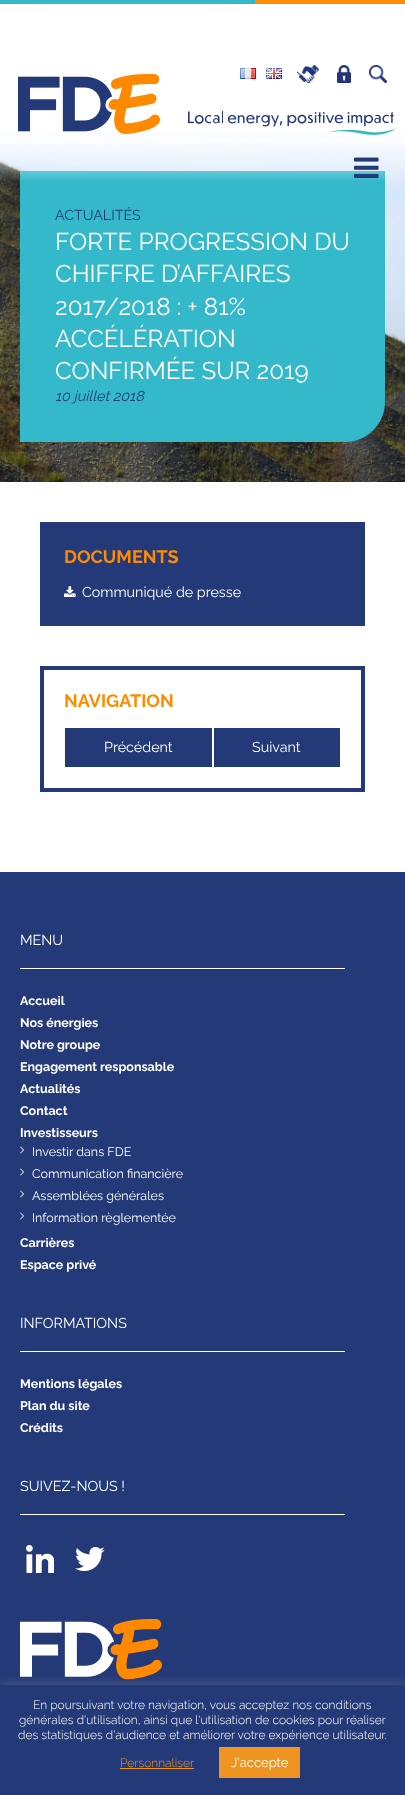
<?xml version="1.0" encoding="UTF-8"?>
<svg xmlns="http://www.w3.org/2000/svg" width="405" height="1795">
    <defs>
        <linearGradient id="g1" gradientUnits="userSpaceOnUse" x1="0" y1="-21" x2="60" y2="-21"><stop offset="0" stop-color="#33B9C4"/><stop offset="1" stop-color="#33B9CA"/></linearGradient>
        <linearGradient id="g2" gradientUnits="userSpaceOnUse" x1="255" y1="-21" x2="195" y2="-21"><stop offset="0" stop-color="#33B9C4"/><stop offset="1" stop-color="#33B9CA"/></linearGradient>
        <linearGradient id="g3" gradientUnits="userSpaceOnUse" x1="203" y1="54" x2="203" y2="182"><stop offset="0" stop-color="#FFFFFF"/><stop offset="0.33" stop-color="#FFFFFF"/><stop offset="0.67" stop-color="#FFFFFF" stop-opacity="0.9"/><stop offset="1" stop-color="#FFFFFF" stop-opacity="0"/></linearGradient>
        <filter id="blur1" x="-50%" y="-200%" width="200%" height="500%"><feGaussianBlur stdDeviation="5"/></filter>
    </defs>
    <rect width="100%" height="100%" fill="#FFFFFF"/>
    <rect x="60" y="0" width="135" height="4" fill="#33B9CA"/>
    <rect x="0" y="0" width="60" height="4" fill="url(#g1)"/>
    <rect x="195" y="0" width="60" height="4" fill="url(#g2)"/>
    <rect x="255" y="0" width="150" height="4" fill="#FF8C00"/>
    <image x="0" y="132" width="405" height="350" href="img_09.png"/>
    <path d="M 20 171 H 385 V 402 C 385 424 367 442 345 442 H 20 Z" fill="#33B9CA"/>
    <rect x="0" y="132" width="405" height="49" fill="url(#g3)"/>
    <image x="18" y="74" width="142" height="60" href="img_01.png"/>
    <image x="240" y="68" width="16" height="11" href="img_02.png"/>
    <image x="266" y="68" width="16" height="11" href="img_03.png"/>
    <image x="297" y="65" width="22" height="18" href="img_04.png"/>
    <image x="337" y="65" width="14" height="18" href="img_05.png"/>
    <image x="369" y="65" width="18" height="18" href="img_06.png"/>
    <image x="188" y="111" width="209" height="24" href="img_07.png"/>
    <image x="354" y="157" width="25" height="21" href="img_08.png"/>
    <text x="55" y="220" font-family="Raleway" font-size="14.3" fill="#243A78">ACTUALITÉS</text>
    <text font-family="Raleway" font-size="24.25" fill="#FFFFFF">
        <tspan x="55" y="250">FORTE PROGRESSION DU</tspan>
        <tspan x="55" y="282">CHIFFRE D’AFFAIRES</tspan>
        <tspan x="55" y="315">2017/2018 : + 81%</tspan>
        <tspan x="55" y="347">ACCÉLÉRATION</tspan>
        <tspan x="55" y="379">CONFIRMÉE SUR 2019</tspan>
    </text>
    <text x="55" y="401" font-family="Raleway" font-size="14.3" font-style="italic" fill="#243A78">10 juillet 2018</text>
    <rect x="40" y="522" width="325" height="104" fill="#243A78"/>
    <text x="64" y="563" font-family="Raleway" font-size="18" font-weight="700" fill="#FF8C00">DOCUMENTS</text>
    <image x="64" y="586" width="12" height="11" href="img_10.png"/>
    <text x="82" y="597" font-family="Raleway" font-size="14.3" fill="#FFFFFF">Communiqué de presse</text>
    <rect x="42" y="668" width="321" height="122" fill="none" stroke="#243A78" stroke-width="4"/>
    <text x="64" y="707" font-family="Raleway" font-size="18" font-weight="700" fill="#FF8C00">NAVIGATION</text>
    <rect x="65" y="728" width="147" height="39" fill="#243A78"/>
    <text x="104" y="752" font-family="Raleway" font-size="14.3" fill="#FFFFFF">Précédent</text>
    <rect x="214" y="728" width="126" height="39" fill="#243A78"/>
    <text x="252" y="752" font-family="Raleway" font-size="14.3" fill="#FFFFFF">Suivant</text>
    <rect x="0" y="872" width="405" height="813" fill="#243A78"/>
    <rect x="20" y="968" width="325" height="1" fill="#FFFFFF"/>
    <text x="20" y="945" font-family="Raleway" font-size="14.3" fill="#FFFFFF">MENU</text>
    <text font-family="Raleway" font-size="12.5" font-weight="700" fill="#FFFFFF">
        <tspan x="20" y="1005">Accueil</tspan>
        <tspan x="20" y="1027">Nos énergies</tspan>
        <tspan x="20" y="1049">Notre groupe</tspan>
        <tspan x="20" y="1071">Engagement responsable</tspan>
        <tspan x="20" y="1093">Actualités</tspan>
        <tspan x="20" y="1115">Contact</tspan>
        <tspan x="20" y="1137">Investisseurs</tspan>
    </text>
    <image x="20" y="1146" width="5" height="8" href="img_11.png"/>
    <text x="32" y="1156" font-family="Raleway" font-size="12.5" fill="#FFFFFF">Investir dans FDE</text>
    <image x="20" y="1168" width="5" height="8" href="img_11.png"/>
    <text x="32" y="1178" font-family="Raleway" font-size="12.5" fill="#FFFFFF">Communication financière</text>
    <image x="20" y="1190" width="5" height="8" href="img_11.png"/>
    <text x="32" y="1200" font-family="Raleway" font-size="12.5" fill="#FFFFFF">Assemblées générales</text>
    <image x="20" y="1212" width="5" height="8" href="img_11.png"/>
    <text x="32" y="1222" font-family="Raleway" font-size="12.5" fill="#FFFFFF">Information règlementée</text>
    <text font-family="Raleway" font-size="12.5" font-weight="700" fill="#FFFFFF">
        <tspan x="20" y="1247">Carrières</tspan>
        <tspan x="20" y="1269">Espace privé</tspan>
    </text>
    <rect x="20" y="1351" width="325" height="1" fill="#FFFFFF"/>
    <text x="20" y="1328" font-family="Raleway" font-size="14.3" fill="#FFFFFF">INFORMATIONS</text>
    <text font-family="Raleway" font-size="12.5" font-weight="700" fill="#FFFFFF">
        <tspan x="20" y="1388">Mentions légales</tspan>
        <tspan x="20" y="1410">Plan du site</tspan>
        <tspan x="20" y="1432">Crédits</tspan>
    </text>
    <rect x="20" y="1514" width="325" height="1" fill="#FFFFFF"/>
    <text x="20" y="1491" font-family="Raleway" font-size="14.3" fill="#FFFFFF">SUIVEZ-NOUS !</text>
    <image x="26" y="1545" width="28" height="28" href="img_12.png"/>
    <image x="75" y="1547" width="30" height="24" href="img_13.png"/>
    <image x="20" y="1619" width="142" height="61" href="img_14.png"/>
    <rect x="0" y="1684" width="405" height="110" fill="#ACABAB" fill-opacity="0.3" filter="url(#blur1)"/>
    <rect x="0" y="1685" width="405" height="110" fill="#243A78"/>
    <text x="33" y="1709" font-family="Raleway" font-size="12" font-weight="300" fill="#FFFFFF">En poursuivant votre navigation, vous acceptez nos conditions</text>
    <text x="19" y="1724" font-family="Raleway" font-size="12" font-weight="300" fill="#FFFFFF">générales d'utilisation, ainsi que l'utilisation de cookies pour réaliser</text>
    <text x="18" y="1739" font-family="Raleway" font-size="12" font-weight="300" fill="#FFFFFF">des statistiques d'audience et améliorer votre expérience utilisateur.</text>
    <text x="120" y="1767" font-family="Raleway" font-size="12" font-weight="300" fill="#F09421">Personnaliser</text>
    <rect x="120" y="1768" width="74" height="1" fill="#F09421"/>
    <rect x="219" y="1747" width="81" height="31" fill="#F09421"/>
    <text x="231" y="1767" font-family="Raleway" font-size="13" fill="#FFFFFF">J'accepte</text>
</svg>
